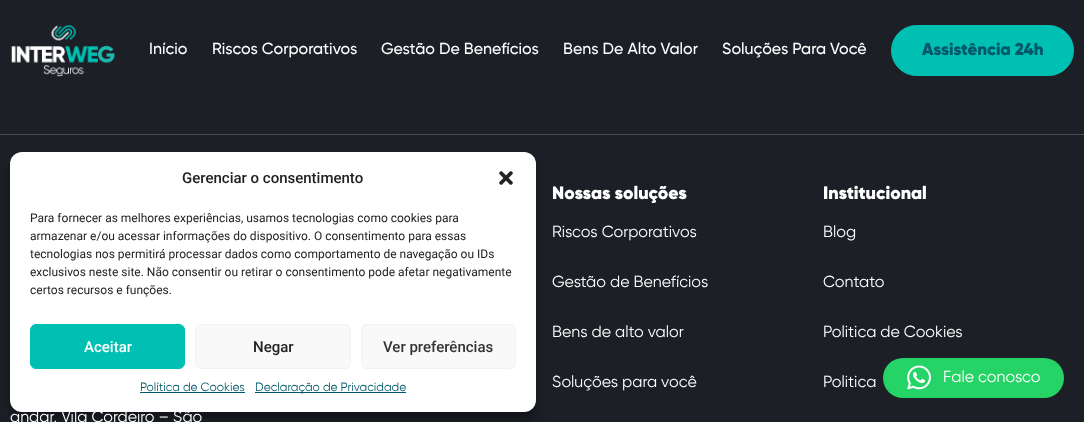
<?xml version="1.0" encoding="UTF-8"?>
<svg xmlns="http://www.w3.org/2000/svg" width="1084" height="422">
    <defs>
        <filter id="blur1" x="-50%" y="-200%" width="200%" height="500%"><feGaussianBlur stdDeviation="3"/></filter>
        <filter id="blur2" x="-50%" y="-200%" width="200%" height="500%"><feGaussianBlur stdDeviation="10"/></filter>
    </defs>
    <rect width="100%" height="100%" fill="#1C2026"/>
    <image x="11" y="24" width="104" height="53" href="img_01.png"/>
    <text x="149" y="54" font-family="Gilroy" font-size="16" font-weight="500" fill="#FFFFFF">Início</text>
    <text x="212" y="54" font-family="Gilroy" font-size="16" font-weight="500" fill="#FFFFFF">Riscos Corporativos</text>
    <text x="381" y="54" font-family="Gilroy" font-size="16" font-weight="500" fill="#FFFFFF">Gestão De Benefícios</text>
    <text x="563" y="54" font-family="Gilroy" font-size="16" font-weight="500" fill="#FFFFFF">Bens De Alto Valor</text>
    <text x="722" y="54" font-family="Gilroy" font-size="16" font-weight="500" fill="#FFFFFF">Soluções Para Você</text>
    <rect x="891.5" y="25.5" width="182" height="50" rx="25" fill="#00C0B3" stroke="#00C0B3"/>
    <text x="922" y="55" font-family="Gilroy" font-size="17" font-weight="900" fill="#005968">Assistência 24h</text>
    <rect x="10" y="158" width="526" height="260" rx="12" fill="#000000" fill-opacity="0.23" filter="url(#blur1)"/>
    <rect x="0" y="134" width="1084" height="1" fill="#494D51"/>
    <rect x="10" y="162" width="526" height="260" rx="12" fill="#000000" fill-opacity="0.19" filter="url(#blur2)"/>
    <rect x="10" y="152" width="526" height="260" rx="12" fill="#FFFFFF"/>
    <text x="182" y="183" font-family="Roboto" font-size="15" font-weight="500" fill="#222222">Gerenciar o consentimento</text>
    <image x="499" y="171" width="14" height="14" href="img_02.png"/>
    <text font-family="Roboto" font-size="12" fill="#222222">
        <tspan x="30" y="222">Para fornecer as melhores experiências, usamos tecnologias como cookies para</tspan>
        <tspan x="30" y="240">armazenar e/ou acessar informações do dispositivo. O consentimento para essas</tspan>
        <tspan x="30" y="258">tecnologias nos permitirá processar dados como comportamento de navegação ou IDs</tspan>
        <tspan x="30" y="276">exclusivos neste site. Não consentir ou retirar o consentimento pode afetar negativamente</tspan>
        <tspan x="30" y="294">certos recursos e funções.</tspan>
    </text>
    <rect x="30.5" y="324.5" width="154" height="44" rx="5.5" fill="#00C0B3" stroke="#00C0B3"/>
    <text x="84" y="352" font-family="Roboto" font-size="15" font-weight="500" fill="#FFFFFF">Aceitar</text>
    <rect x="195.5" y="324.5" width="155" height="44" rx="5.5" fill="#F9F9F9" stroke="#F2F2F2"/>
    <text x="253" y="352" font-family="Roboto" font-size="15" font-weight="500" fill="#222222">Negar</text>
    <rect x="361.5" y="324.5" width="154" height="44" rx="5.5" fill="#F9F9F9" stroke="#F2F2F2"/>
    <text x="383" y="352" font-family="Roboto" font-size="15" font-weight="500" fill="#333333">Ver preferências</text>
    <text x="140" y="391" font-family="Gilroy" font-size="12" fill="#005968">Política de Cookies</text>
    <rect x="140" y="392" width="105" height="1" fill="#005968"/>
    <rect x="255" y="392" width="151" height="1" fill="#005968"/>
    <text x="255" y="391" font-family="Gilroy" font-size="12" fill="#005968">Declaração de Privacidade</text>
    <text x="552" y="199" font-family="Gilroy" font-size="18" font-weight="900" fill="#FFFFFF">Nossas soluções</text>
    <text x="552" y="237" font-family="Gilroy" font-size="16" fill="#FFFFFF">Riscos Corporativos</text>
    <text x="552" y="287" font-family="Gilroy" font-size="16" fill="#FFFFFF">Gestão de Benefícios</text>
    <text x="552" y="337" font-family="Gilroy" font-size="16" fill="#FFFFFF">Bens de alto valor</text>
    <text x="552" y="387" font-family="Gilroy" font-size="16" fill="#FFFFFF">Soluções para você</text>
    <text x="823" y="199" font-family="Gilroy" font-size="18" font-weight="900" fill="#FFFFFF">Institucional</text>
    <text x="823" y="237" font-family="Gilroy" font-size="16" fill="#FFFFFF">Blog</text>
    <text x="823" y="287" font-family="Gilroy" font-size="16" fill="#FFFFFF">Contato</text>
    <text x="823" y="337" font-family="Gilroy" font-size="16" fill="#FFFFFF">Politica de Cookies</text>
    <text x="823" y="387" font-family="Gilroy" font-size="16" fill="#FFFFFF">Politica</text>
    <text x="10" y="422" font-family="Gilroy" font-size="16" fill="#FFFFFF">andar, Vila Cordeiro – São</text>
    <rect x="883" y="358" width="181" height="40" rx="20" fill="#25D366"/>
    <image x="907" y="365" width="24" height="25" href="img_03.png"/>
    <text x="943" y="382" font-family="Gilroy" font-size="16" fill="#FFFFFF">Fale conosco</text>
</svg>
